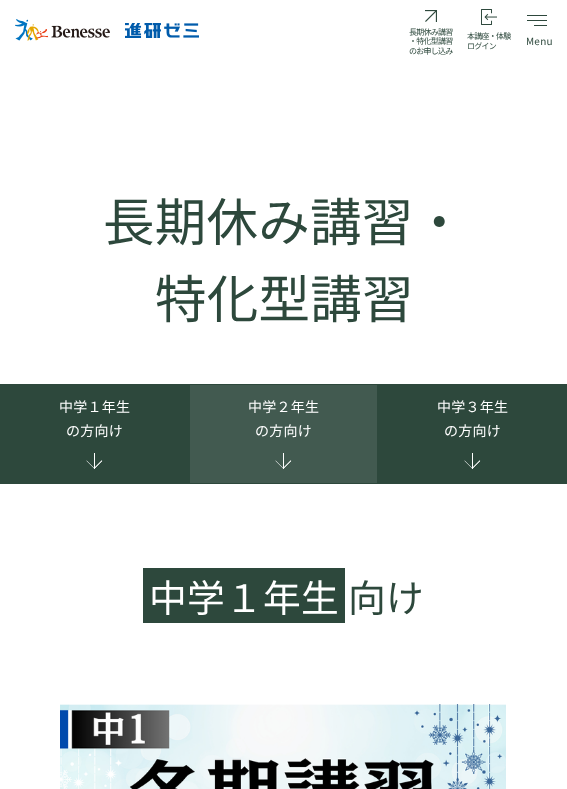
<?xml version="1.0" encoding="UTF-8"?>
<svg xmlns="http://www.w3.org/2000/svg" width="567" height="789">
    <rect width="100%" height="100%" fill="#FFFFFF"/>
    <image x="15" y="19" width="95" height="22" href="img_01.png"/>
    <image x="125" y="23" width="74" height="15" href="img_02.png"/>
    <image x="425" y="10" width="12" height="12" href="img_03.png"/>
    <text font-family="Noto Sans JP" font-size="8" letter-spacing="-0.75" fill="#2D483C">
        <tspan x="409" y="35">長期休み講習</tspan>
        <tspan x="409" y="44">・特化型講習</tspan>
        <tspan x="409" y="54">のお申し込み</tspan>
    </text>
    <image x="481" y="9" width="16" height="16" href="img_04.png"/>
    <text font-family="Noto Sans JP" font-size="8" letter-spacing="-0.75" fill="#2D483C">
        <tspan x="467" y="39">本講座・体験</tspan>
        <tspan x="467" y="49">ログイン</tspan>
    </text>
    <rect x="527" y="15" width="20" height="1" fill="#2D483C"/>
    <rect x="527" y="20" width="20" height="1" fill="#2D483C"/>
    <rect x="534" y="25" width="13" height="1" fill="#2D483C"/>
    <text x="526" y="45" font-family="Noto Sans JP" font-size="10" letter-spacing="0.25" fill="#2D483C">Menu</text>
    <text x="103" y="241" font-family="Noto Sans JP" font-size="51.5" letter-spacing="0.25" fill="#2D483C">長期休み講習・</text>
    <text x="155" y="318" font-family="Noto Sans JP" font-size="51.5" letter-spacing="0.25" fill="#2D483C">特化型講習</text>
    <rect x="0" y="384" width="189" height="100" fill="#2D483C"/>
    <text x="59" y="412" font-family="Noto Sans JP" font-size="14" letter-spacing="0.25" fill="#FFFFFF">中学１年生</text>
    <text x="66" y="436" font-family="Noto Sans JP" font-size="14" letter-spacing="0.25" fill="#FFFFFF">の方向け</text>
    <image x="86" y="453" width="17" height="16" href="img_05.png"/>
    <rect x="189.5" y="384.5" width="188" height="99" fill="#425A50" stroke="#2D483C"/>
    <text x="248" y="412" font-family="Noto Sans JP" font-size="14" letter-spacing="0.25" fill="#FFFFFF">中学２年生</text>
    <text x="255" y="436" font-family="Noto Sans JP" font-size="14" letter-spacing="0.25" fill="#FFFFFF">の方向け</text>
    <image x="275" y="453" width="17" height="16" href="img_06.png"/>
    <rect x="378" y="384" width="189" height="100" fill="#2D483C"/>
    <text x="437" y="412" font-family="Noto Sans JP" font-size="14" letter-spacing="0.25" fill="#FFFFFF">中学３年生</text>
    <text x="444" y="436" font-family="Noto Sans JP" font-size="14" letter-spacing="0.25" fill="#FFFFFF">の方向け</text>
    <image x="464" y="453" width="17" height="16" href="img_05.png"/>
    <rect x="143" y="568" width="202" height="55" fill="#2D483C"/>
    <text x="149" y="612" font-family="Noto Sans JP" font-size="37.75" letter-spacing="0.25" fill="#FFFFFF">中学１年生</text>
    <text x="348" y="612" font-family="Noto Sans JP" font-size="37.75" letter-spacing="0.25" fill="#2D483C">向け</text>
    <image x="60" y="704" width="446" height="85" href="img_07.png"/>
</svg>
